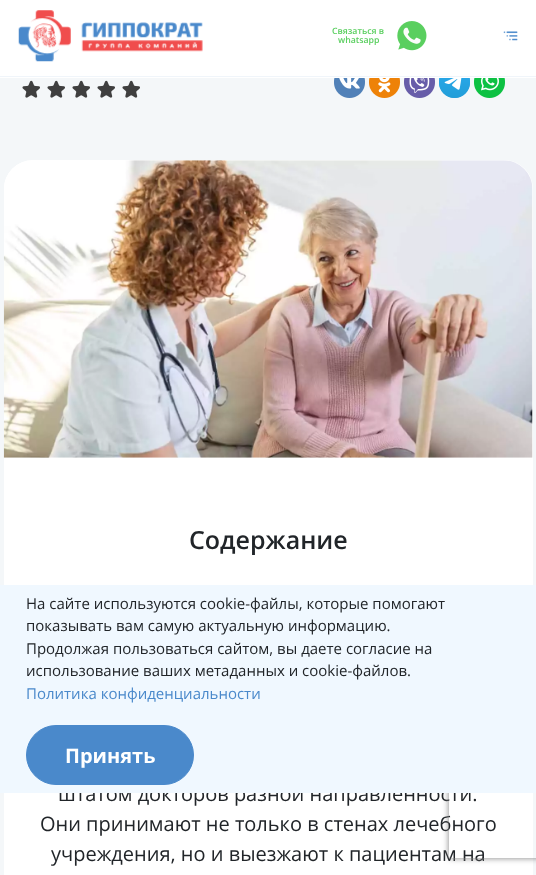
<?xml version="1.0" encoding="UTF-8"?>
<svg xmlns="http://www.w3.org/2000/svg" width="536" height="875">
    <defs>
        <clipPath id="clip1"><path d="M 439 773 H 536 V 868 H 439 Z M 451.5 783 H 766.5 C 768 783 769 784 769 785.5 V 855.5 C 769 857 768 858 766.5 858 H 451.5 C 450 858 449 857 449 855.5 V 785.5 C 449 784 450 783 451.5 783 Z" clip-rule="evenodd"/></clipPath>
        <filter id="blur1" x="-50%" y="-200%" width="200%" height="500%"><feGaussianBlur stdDeviation="3"/></filter>
    </defs>
    <rect width="100%" height="100%" fill="#F4F7F9"/>
    <rect x="0" y="0" width="536" height="78" fill="#FFFFFF"/>
    <rect x="0" y="76" width="536" height="1" fill="#F0F5FA"/>
    <image x="18" y="10" width="185" height="52" href="img_01.png"/>
    <text x="332" y="34" font-family="Open Sans" font-size="8.75" font-weight="600" fill="#5ACF5F">Связаться в</text>
    <text x="338" y="43" font-family="Open Sans" font-size="8.75" font-weight="600" fill="#5ACF5F">whatsapp</text>
    <image x="397" y="21" width="30" height="30" href="img_02.png"/>
    <image x="503" y="31" width="15" height="10" href="img_03.png"/>
    <image x="22" y="80" width="18" height="18" href="img_04.png"/>
    <image x="47" y="80" width="18" height="18" href="img_04.png"/>
    <image x="72" y="80" width="18" height="18" href="img_04.png"/>
    <image x="97" y="80" width="18" height="18" href="img_04.png"/>
    <image x="122" y="80" width="18" height="18" href="img_04.png"/>
    <image x="334" y="78" width="31" height="20" href="img_05.png"/>
    <image x="369" y="78" width="31" height="20" href="img_06.png"/>
    <image x="404" y="78" width="31" height="20" href="img_07.png"/>
    <image x="439" y="78" width="31" height="20" href="img_08.png"/>
    <image x="474" y="78" width="31" height="20" href="img_09.png"/>
    <rect x="4" y="160" width="529" height="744" rx="29" fill="#FFFFFF"/>
    <image x="3" y="160" width="530" height="298" href="img_10.png"/>
    <text x="189" y="549" font-family="Open Sans" font-size="25" font-weight="600" fill="#212529">Содержание</text>
    <text x="58" y="801" font-family="Open Sans" font-size="20" fill="#212529">штатом докторов разной направленности.</text>
    <text x="40" y="831" font-family="Open Sans" font-size="20" fill="#212529">Они принимают не только в стенах лечебного</text>
    <text x="51" y="861" font-family="Open Sans" font-size="20" fill="#212529">учреждения, но и выезжают к пациентам на</text>
    <g clip-path="url(#clip1)">
        <rect x="449" y="783" width="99" height="75" rx="2.5" fill="#808080" filter="url(#blur1)"/>
    </g>
    <rect x="0" y="585" width="536" height="208" fill="#F0F8FF"/>
    <text font-family="Open Sans" font-size="15" fill="#212529">
        <tspan x="26" y="609">На сайте используются cookie-файлы, которые помогают</tspan>
        <tspan x="26" y="631">показывать вам самую актуальную информацию.</tspan>
        <tspan x="26" y="654">Продолжая пользоваться сайтом, вы даете согласие на</tspan>
        <tspan x="26" y="676">использование ваших метаданных и cookie-файлов.</tspan>
    </text>
    <text x="26" y="699" font-family="Open Sans" font-size="15" fill="#4A89CB">Политика конфиденциальности</text>
    <rect x="26.5" y="725.5" width="167" height="59" rx="29.5" fill="#4A89CB" stroke="#4A89CB"/>
    <text x="65" y="763" font-family="Open Sans" font-size="20" font-weight="700" fill="#FFFFFF">Принять</text>
</svg>
